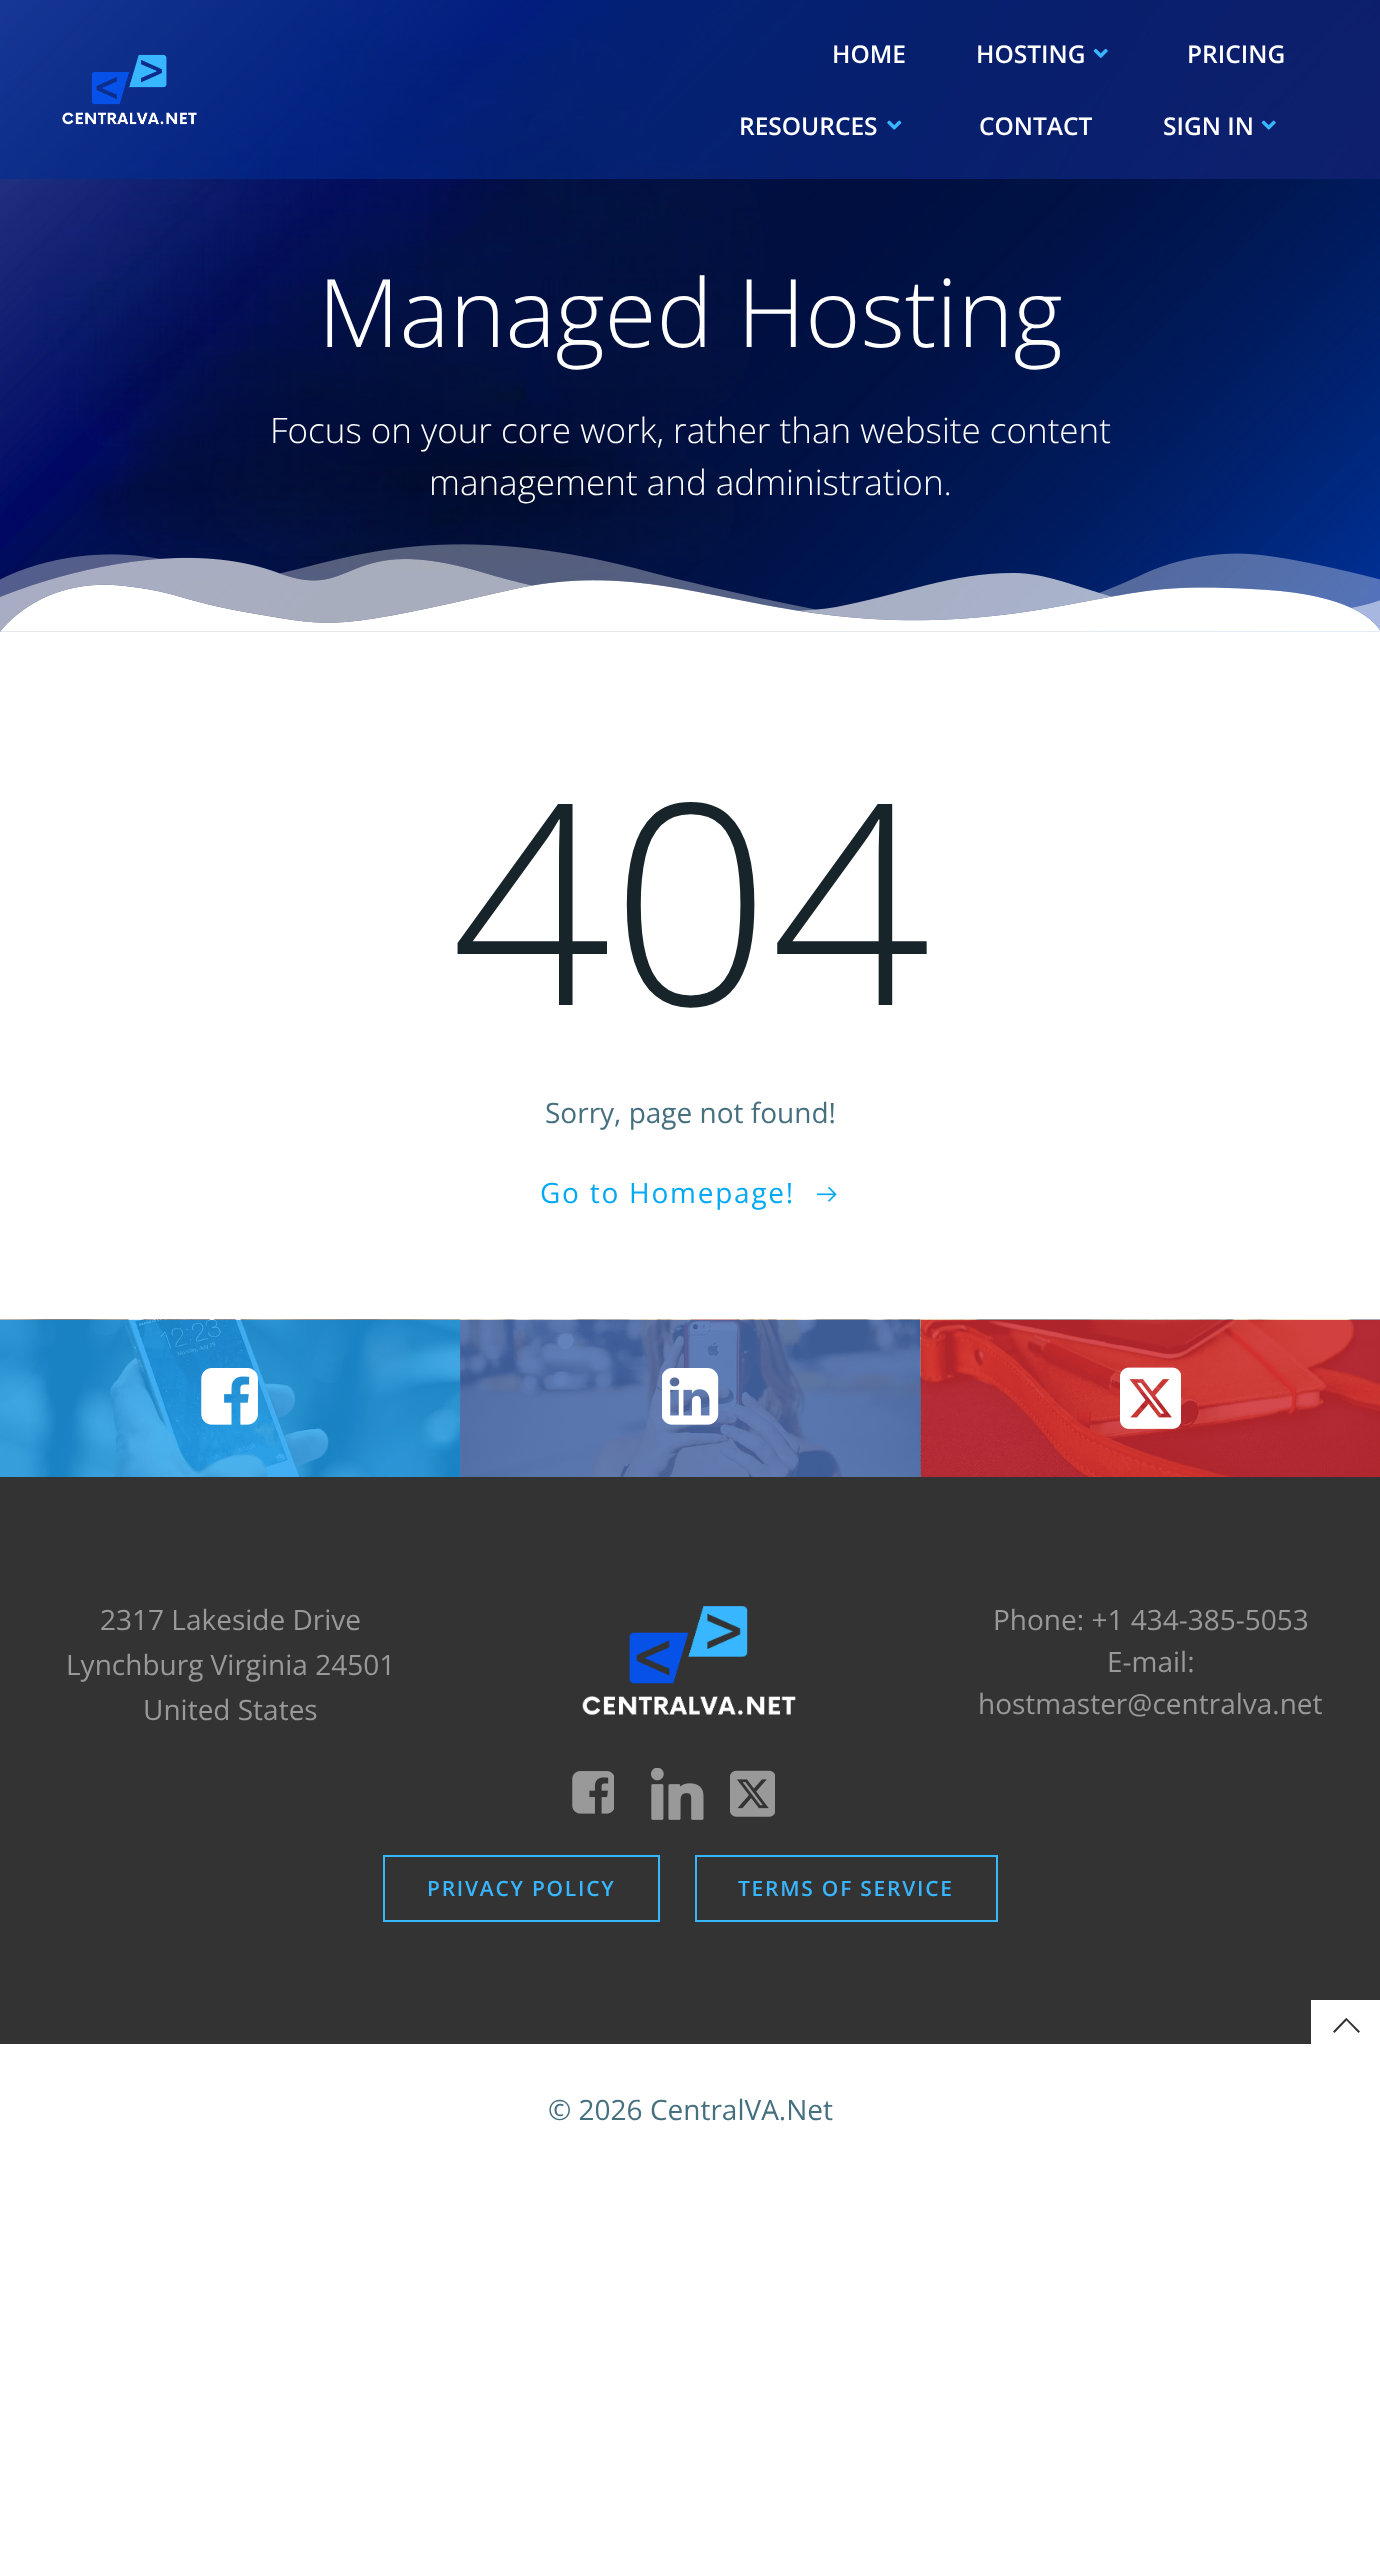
<?xml version="1.0" encoding="UTF-8"?>
<svg xmlns="http://www.w3.org/2000/svg" width="1380" height="2556">
    <rect width="100%" height="100%" fill="#FFFFFF"/>
    <image x="0" y="0" width="1380" height="632" href="img_05.png"/>
    <image x="62" y="54" width="135" height="71" href="img_01.png"/>
    <text x="832" y="63" font-family="Open Sans" font-size="24.5" font-weight="600" fill="#FFFFFF">HOME</text>
    <text x="976" y="63" font-family="Open Sans" font-size="24.5" font-weight="600" fill="#FFFFFF">HOSTING</text>
    <image x="1093" y="48" width="15" height="10" href="img_02.png"/>
    <text x="1187" y="63" font-family="Open Sans" font-size="24.5" font-weight="600" fill="#FFFFFF">PRICING</text>
    <text x="739" y="135" font-family="Open Sans" font-size="24.5" font-weight="600" fill="#FFFFFF">RESOURCES</text>
    <image x="887" y="120" width="15" height="10" href="img_03.png"/>
    <text x="979" y="135" font-family="Open Sans" font-size="24.5" font-weight="600" fill="#FFFFFF">CONTACT</text>
    <text x="1163" y="135" font-family="Open Sans" font-size="24.5" font-weight="600" fill="#FFFFFF">SIGN IN</text>
    <image x="1261" y="120" width="15" height="10" href="img_04.png"/>
    <text x="318" y="347" font-family="Open Sans" font-size="94.5" font-weight="300" fill="#FFFFFF">Managed Hosting</text>
    <text x="270" y="443" font-family="Open Sans" font-size="35" font-weight="300" fill="#FFFFFF">Focus on your core work, rather than website content</text>
    <text x="429" y="495" font-family="Open Sans" font-size="35" font-weight="300" fill="#FFFFFF">management and administration.</text>
    <image x="0" y="544" width="1380" height="88" href="img_06.png"/>
    <text x="451" y="1005" font-family="Open Sans" font-size="280" font-weight="300" fill="#17252A">404</text>
    <text x="545" y="1123" font-family="Open Sans" font-size="28" fill="#46707F">Sorry, page not found!</text>
    <text x="540" y="1203" font-family="Open Sans" font-size="28" letter-spacing="1.75" fill="#03A9F4">Go to Homepage!</text>
    <image x="817" y="1186" width="20" height="16" href="img_07.png"/>
    <image x="0" y="1319" width="461" height="158" href="img_08.png"/>
    <image x="201" y="1368" width="57" height="57" href="img_09.png"/>
    <image x="460" y="1319" width="461" height="158" href="img_10.png"/>
    <rect x="460" y="1320" width="461" height="157" fill="#4064AD" fill-opacity="0.8"/>
    <image x="662" y="1368" width="57" height="57" href="img_11.png"/>
    <image x="920" y="1319" width="460" height="158" href="img_12.png"/>
    <image x="1120" y="1367" width="61" height="62" href="img_13.png"/>
    <rect x="0" y="1477" width="1380" height="567" fill="#333333"/>
    <text x="100" y="1630" font-family="Open Sans" font-size="28" fill="#999999">2317 Lakeside Drive</text>
    <text x="66" y="1675" font-family="Open Sans" font-size="28" fill="#999999">Lynchburg Virginia 24501</text>
    <text x="143" y="1720" font-family="Open Sans" font-size="28" fill="#999999">United States</text>
    <image x="582" y="1606" width="214" height="109" href="img_14.png"/>
    <text x="993" y="1630" font-family="Open Sans" font-size="28" fill="#999999">Phone: +1 434-385-5053</text>
    <text x="1107" y="1672" font-family="Open Sans" font-size="28" fill="#999999">E-mail:</text>
    <text x="978" y="1714" font-family="Open Sans" font-size="28" fill="#999999">hostmaster@centralva.net</text>
    <image x="572" y="1771" width="42" height="43" href="img_15.png"/>
    <image x="651" y="1768" width="53" height="52" href="img_16.png"/>
    <image x="730" y="1770" width="45" height="47" href="img_17.png"/>
    <rect x="384" y="1856" width="275" height="65" fill="none" stroke="#38B6FF" stroke-width="2"/>
    <text x="427" y="1896" font-family="Open Sans" font-size="21" font-weight="600" letter-spacing="1.75" fill="#38B6FF">PRIVACY POLICY</text>
    <rect x="696" y="1856" width="301" height="65" fill="none" stroke="#38B6FF" stroke-width="2"/>
    <text x="738" y="1896" font-family="Open Sans" font-size="21" font-weight="600" letter-spacing="1.75" fill="#38B6FF">TERMS OF SERVICE</text>
    <rect x="1311" y="2000" width="69" height="44" fill="#FFFFFF"/>
    <path d="M 1346.5 2018 L 1360 2031.5 L 1358.5 2033 L 1346.5 2020.5 L 1334.5 2033 L 1333 2031.5 L 1345.5 2018.5 Z" fill="#333333"/>
    <text x="548" y="2120" font-family="Open Sans" font-size="28" fill="#46707F">© 2026 CentralVA.Net</text>
</svg>
